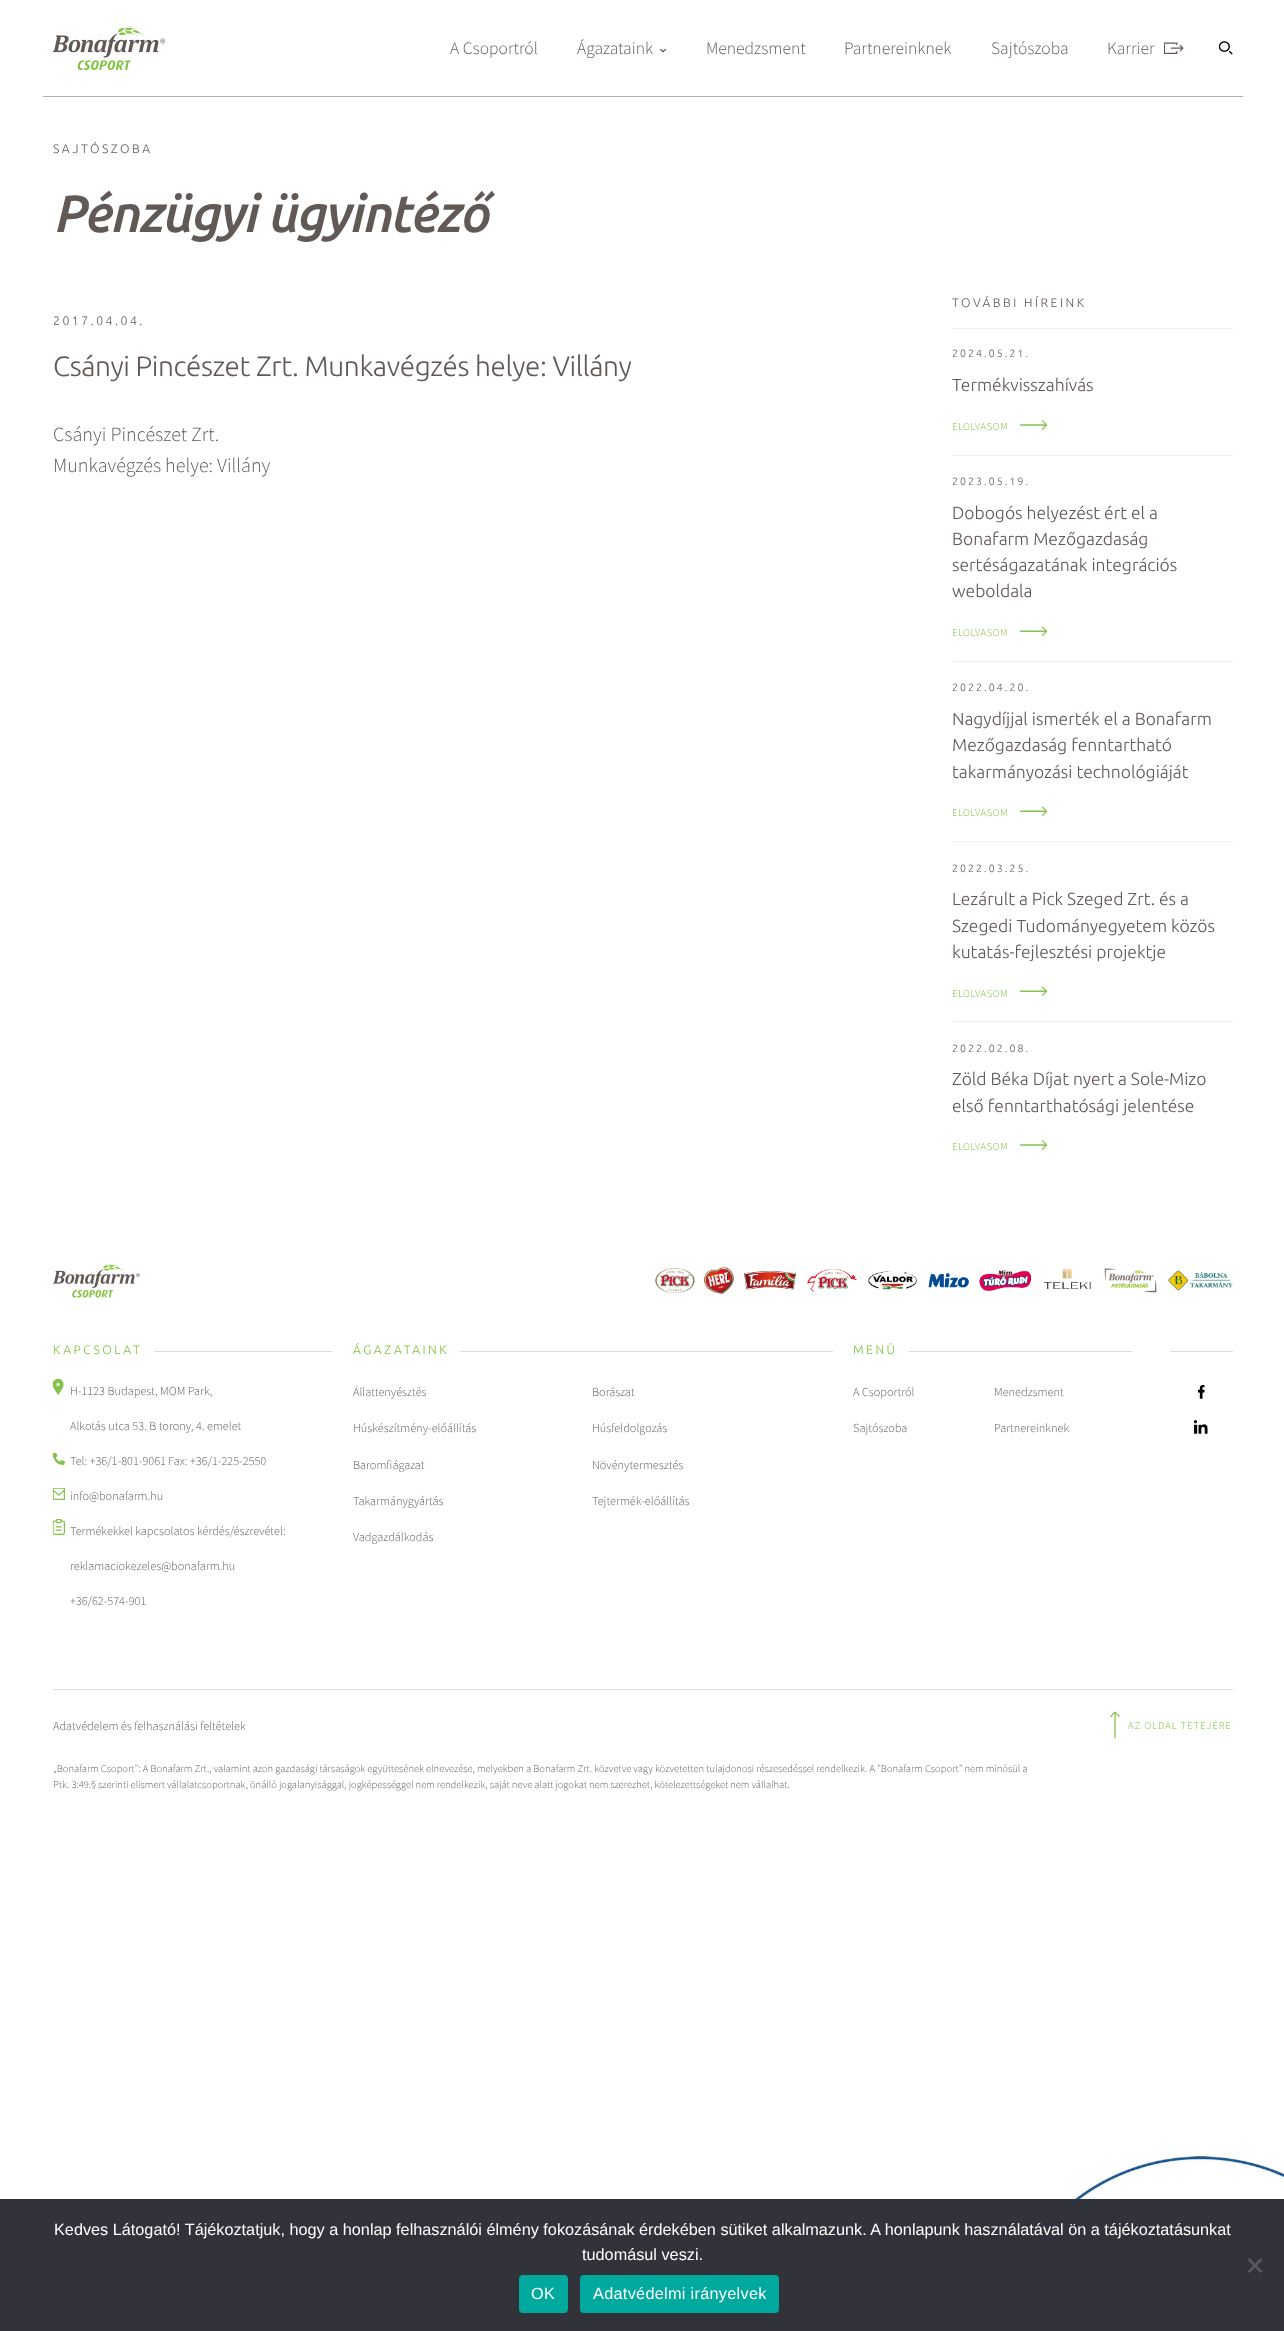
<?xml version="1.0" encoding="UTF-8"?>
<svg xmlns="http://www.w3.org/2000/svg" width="1284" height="2331">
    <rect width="100%" height="100%" fill="#FFFFFF"/>
    <rect x="43" y="96" width="1200" height="1" fill="#B3B3B3"/>
    <image x="53" y="26" width="112" height="44" href="img_01.png"/>
    <text x="450" y="54" font-family="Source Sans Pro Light" font-size="17.5" font-weight="300" fill="#615956">A Csoportról</text>
    <image x="660" y="49" width="6" height="4" href="img_02.png"/>
    <text x="577" y="54" font-family="Source Sans Pro Light" font-size="17.5" font-weight="300" fill="#615956">Ágazataink</text>
    <text x="706" y="54" font-family="Source Sans Pro Light" font-size="17.5" font-weight="300" fill="#615956">Menedzsment</text>
    <text x="844" y="54" font-family="Source Sans Pro Light" font-size="17.5" font-weight="300" fill="#615956">Partnereinknek</text>
    <text x="991" y="54" font-family="Source Sans Pro Light" font-size="17.5" font-weight="300" fill="#615956">Sajtószoba</text>
    <text x="1107" y="54" font-family="Source Sans Pro Light" font-size="17.5" font-weight="300" fill="#615956">Karrier</text>
    <image x="1164" y="42" width="20" height="12" href="img_03.png"/>
    <image x="1219" y="41" width="14" height="14" href="img_04.png"/>
    <text x="53" y="153" font-family="Ubuntu" font-size="12.25" font-weight="300" letter-spacing="2.5" fill="#615956">SAJTÓSZOBA</text>
    <text x="53" y="232" font-family="Ubuntu" font-size="52.5" font-weight="500" font-style="italic" letter-spacing="-1.3" fill="#615956">Pénzügyi ügyintéző</text>
    <text x="53" y="325" font-family="Ubuntu" font-size="12.25" font-weight="300" letter-spacing="2.5" fill="#615956">2017.04.04.</text>
    <text x="53" y="376" font-family="Ubuntu" font-size="28" font-weight="300" letter-spacing="-0.4" fill="#615956">Csányi Pincészet Zrt. Munkavégzés helye: Villány</text>
    <text font-family="Source Sans Pro Light" font-size="20.1" font-weight="300" fill="#615956">
        <tspan x="53" y="441">Csányi Pincészet Zrt.</tspan>
        <tspan x="53" y="472">Munkavégzés helye: Villány</tspan>
    </text>
    <text x="952" y="307" font-family="Ubuntu" font-size="12.25" font-weight="300" letter-spacing="2.5" fill="#615956">TOVÁBBI HÍREINK</text>
    <rect x="953" y="328" width="280" height="1" fill="#EFEFEF"/>
    <text x="952" y="357" font-family="Ubuntu" font-size="10.5" font-weight="300" letter-spacing="2.1" fill="#615956">2024.05.21.</text>
    <text x="952" y="391" font-family="Ubuntu" font-size="17.5" font-weight="300" fill="#615956">Termékvisszahívás</text>
    <text x="952" y="430" font-family="Source Sans Pro Light" font-size="10.5" font-weight="300" letter-spacing="0.5" fill="#82C341">ELOLVASOM</text>
    <image x="1020" y="420" width="28" height="10" href="img_05.png"/>
    <rect x="953" y="455" width="280" height="1" fill="#EFEFEF"/>
    <text x="952" y="485" font-family="Ubuntu" font-size="10.5" font-weight="300" letter-spacing="2.1" fill="#615956">2023.05.19.</text>
    <text font-family="Ubuntu" font-size="17.5" font-weight="300" fill="#615956">
        <tspan x="952" y="519">Dobogós helyezést ért el a</tspan>
        <tspan x="952" y="545">Bonafarm Mezőgazdaság</tspan>
        <tspan x="952" y="571">sertéságazatának integrációs</tspan>
        <tspan x="952" y="597">weboldala</tspan>
    </text>
    <text x="952" y="636" font-family="Source Sans Pro Light" font-size="10.5" font-weight="300" letter-spacing="0.5" fill="#82C341">ELOLVASOM</text>
    <image x="1020" y="626" width="28" height="10" href="img_06.png"/>
    <rect x="953" y="661" width="280" height="1" fill="#EFEFEF"/>
    <text x="952" y="691" font-family="Ubuntu" font-size="10.5" font-weight="300" letter-spacing="2.1" fill="#615956">2022.04.20.</text>
    <text font-family="Ubuntu" font-size="17.5" font-weight="300" fill="#615956">
        <tspan x="952" y="725">Nagydíjjal ismerték el a Bonafarm</tspan>
        <tspan x="952" y="751">Mezőgazdaság fenntartható</tspan>
        <tspan x="952" y="778">takarmányozási technológiáját</tspan>
    </text>
    <text x="952" y="816" font-family="Source Sans Pro Light" font-size="10.5" font-weight="300" letter-spacing="0.5" fill="#82C341">ELOLVASOM</text>
    <image x="1020" y="806" width="28" height="10" href="img_06.png"/>
    <rect x="953" y="841" width="280" height="1" fill="#EFEFEF"/>
    <text x="952" y="872" font-family="Ubuntu" font-size="10.5" font-weight="300" letter-spacing="2.1" fill="#615956">2022.03.25.</text>
    <text font-family="Ubuntu" font-size="17.5" font-weight="300" fill="#615956">
        <tspan x="952" y="905">Lezárult a Pick Szeged Zrt. és a</tspan>
        <tspan x="952" y="932">Szegedi Tudományegyetem közös</tspan>
        <tspan x="952" y="958">kutatás-fejlesztési projektje</tspan>
    </text>
    <text x="952" y="997" font-family="Source Sans Pro Light" font-size="10.5" font-weight="300" letter-spacing="0.5" fill="#82C341">ELOLVASOM</text>
    <image x="1020" y="986" width="28" height="10" href="img_06.png"/>
    <rect x="953" y="1021" width="280" height="1" fill="#EFEFEF"/>
    <text x="952" y="1052" font-family="Ubuntu" font-size="10.5" font-weight="300" letter-spacing="2.1" fill="#615956">2022.02.08.</text>
    <text font-family="Ubuntu" font-size="17.5" font-weight="300" fill="#615956">
        <tspan x="952" y="1085">Zöld Béka Díjat nyert a Sole-Mizo</tspan>
        <tspan x="952" y="1112">első fenntarthatósági jelentése</tspan>
    </text>
    <text x="952" y="1150" font-family="Source Sans Pro Light" font-size="10.5" font-weight="300" letter-spacing="0.5" fill="#82C341">ELOLVASOM</text>
    <image x="1020" y="1140" width="28" height="10" href="img_05.png"/>
    <image x="53" y="1264" width="87" height="34" href="img_07.png"/>
    <image x="655" y="1267" width="578" height="27" href="img_08.png"/>
    <text x="53" y="1354" font-family="Ubuntu" font-size="12.25" font-weight="300" letter-spacing="2.5" fill="#82C341">KAPCSOLAT</text>
    <rect x="154" y="1351" width="179" height="1" fill="#DDDDDD"/>
    <image x="53" y="1379" width="11" height="16" href="img_09.png"/>
    <text x="70" y="1395" font-family="Source Sans Pro Light" font-size="12.25" font-weight="300" fill="#615956">H-1123 Budapest, MOM Park,</text>
    <text x="70" y="1430" font-family="Source Sans Pro Light" font-size="12.25" font-weight="300" fill="#615956">Alkotás utca 53. B torony, 4. emelet</text>
    <image x="53" y="1453" width="12" height="12" href="img_10.png"/>
    <text x="70" y="1465" font-family="Source Sans Pro Light" font-size="12.25" font-weight="300" fill="#615956">Tel: +36/1-801-9061 Fax: +36/1-225-2550</text>
    <image x="53" y="1488" width="12" height="12" href="img_11.png"/>
    <text x="70" y="1500" font-family="Source Sans Pro Light" font-size="12.25" font-weight="300" fill="#615956">info@bonafarm.hu</text>
    <image x="53" y="1519" width="12" height="16" href="img_12.png"/>
    <text x="70" y="1535" font-family="Source Sans Pro Light" font-size="12.25" font-weight="300" fill="#615956">Termékekkel kapcsolatos kérdés/észrevétel:</text>
    <text x="70" y="1570" font-family="Source Sans Pro Light" font-size="12.25" font-weight="300" fill="#615956">reklamaciokezeles@bonafarm.hu</text>
    <text x="70" y="1605" font-family="Source Sans Pro Light" font-size="12.25" font-weight="300" fill="#615956">+36/62-574-901</text>
    <text x="353" y="1354" font-family="Ubuntu" font-size="12.25" font-weight="300" letter-spacing="2.5" fill="#82C341">ÁGAZATAINK</text>
    <rect x="460" y="1351" width="373" height="1" fill="#DDDDDD"/>
    <text x="353" y="1396" font-family="Source Sans Pro Light" font-size="12.25" font-weight="300" fill="#615956">Állattenyésztés</text>
    <text x="592" y="1396" font-family="Source Sans Pro Light" font-size="12.25" font-weight="300" fill="#615956">Borászat</text>
    <text x="353" y="1432" font-family="Source Sans Pro Light" font-size="12.25" font-weight="300" fill="#615956">Húskészítmény-előállítás</text>
    <text x="592" y="1432" font-family="Source Sans Pro Light" font-size="12.25" font-weight="300" fill="#615956">Húsfeldolgozás</text>
    <text x="353" y="1469" font-family="Source Sans Pro Light" font-size="12.25" font-weight="300" fill="#615956">Baromfiágazat</text>
    <text x="592" y="1469" font-family="Source Sans Pro Light" font-size="12.25" font-weight="300" fill="#615956">Növénytermesztés</text>
    <text x="353" y="1505" font-family="Source Sans Pro Light" font-size="12.25" font-weight="300" fill="#615956">Takarmánygyártás</text>
    <text x="592" y="1505" font-family="Source Sans Pro Light" font-size="12.25" font-weight="300" fill="#615956">Tejtermék-előállítás</text>
    <text x="353" y="1541" font-family="Source Sans Pro Light" font-size="12.25" font-weight="300" fill="#615956">Vadgazdálkodás</text>
    <text x="853" y="1354" font-family="Ubuntu" font-size="12.25" font-weight="300" letter-spacing="2.5" fill="#82C341">MENÜ</text>
    <rect x="909" y="1351" width="224" height="1" fill="#DDDDDD"/>
    <text x="853" y="1396" font-family="Source Sans Pro Light" font-size="12.25" font-weight="300" fill="#615956">A Csoportról</text>
    <text x="994" y="1396" font-family="Source Sans Pro Light" font-size="12.25" font-weight="300" fill="#615956">Menedzsment</text>
    <text x="853" y="1432" font-family="Source Sans Pro Light" font-size="12.25" font-weight="300" fill="#615956">Sajtószoba</text>
    <text x="994" y="1432" font-family="Source Sans Pro Light" font-size="12.25" font-weight="300" fill="#615956">Partnereinknek</text>
    <rect x="1170" y="1351" width="63" height="1" fill="#DDDDDD"/>
    <image x="1198" y="1385" width="7" height="14" href="img_13.png"/>
    <image x="1194" y="1420" width="14" height="14" href="img_14.png"/>
    <rect x="53" y="1689" width="1180" height="1" fill="#DDDDDD"/>
    <text x="53" y="1730" font-family="Source Sans Pro Light" font-size="12.25" font-weight="300" fill="#615956">Adatvédelem és felhasználási feltételek</text>
    <text font-family="Source Sans Pro Light" font-size="10.5" font-weight="300" fill="#615956">
        <tspan x="53" y="1772">„Bonafarm Csoport”: A Bonafarm Zrt., valamint azon gazdasági társaságok együttesének elnevezése, melyekben a Bonafarm Zrt. közvetve vagy közvetetten tulajdonosi részesedéssel rendelkezik. A ”Bonafarm Csoport” nem minősül a</tspan>
        <tspan x="53" y="1788" word-spacing="-0.1">Ptk. 3:49.§ szerinti elismert vállalatcsoportnak, önálló jogalanyisággal, jogképességgel nem rendelkezik, saját neve alatt jogokat nem szerezhet, kötelezettségeket nem vállalhat.</tspan>
    </text>
    <image x="1110" y="1711" width="10" height="28" href="img_15.png"/>
    <text x="1128" y="1729" font-family="Source Sans Pro Light" font-size="10.5" font-weight="300" letter-spacing="1" fill="#82C341">AZ OLDAL TETEJÉRE</text>
    <image x="1075" y="2156" width="209" height="43" href="img_16.png"/>
    <rect x="0" y="2199" width="1284" height="132" fill="#32323A"/>
    <text x="54" y="2235" font-family="Liberation Sans" font-size="16.25" fill="#FFFFFF">Kedves Látogató! Tájékoztatjuk, hogy a honlap felhasználói élmény fokozásának érdekében sütiket alkalmazunk. A honlapunk használatával ön a tájékoztatásunkat</text>
    <text x="582" y="2260" font-family="Liberation Sans" font-size="16.25" fill="#FFFFFF">tudomásul veszi.</text>
    <path d="M 1260.5 2258 L 1262.5 2260 L 1249.5 2273 L 1247.5 2271.5 Z" fill="#59595D"/>
    <path d="M 1247.5 2260 L 1249.5 2258 L 1262.5 2271.5 L 1260.5 2273 Z" fill="#59595D"/>
    <rect x="519" y="2275" width="49" height="38" rx="4" fill="#00A99D"/>
    <text x="531" y="2299" font-family="Liberation Sans" font-size="16.25" letter-spacing="0.3" fill="#FFFFFF">OK</text>
    <rect x="580" y="2275" width="199" height="38" rx="4" fill="#00A99D"/>
    <text x="593" y="2299" font-family="Liberation Sans" font-size="16.25" letter-spacing="0.3" fill="#FFFFFF">Adatvédelmi irányelvek</text>
</svg>
